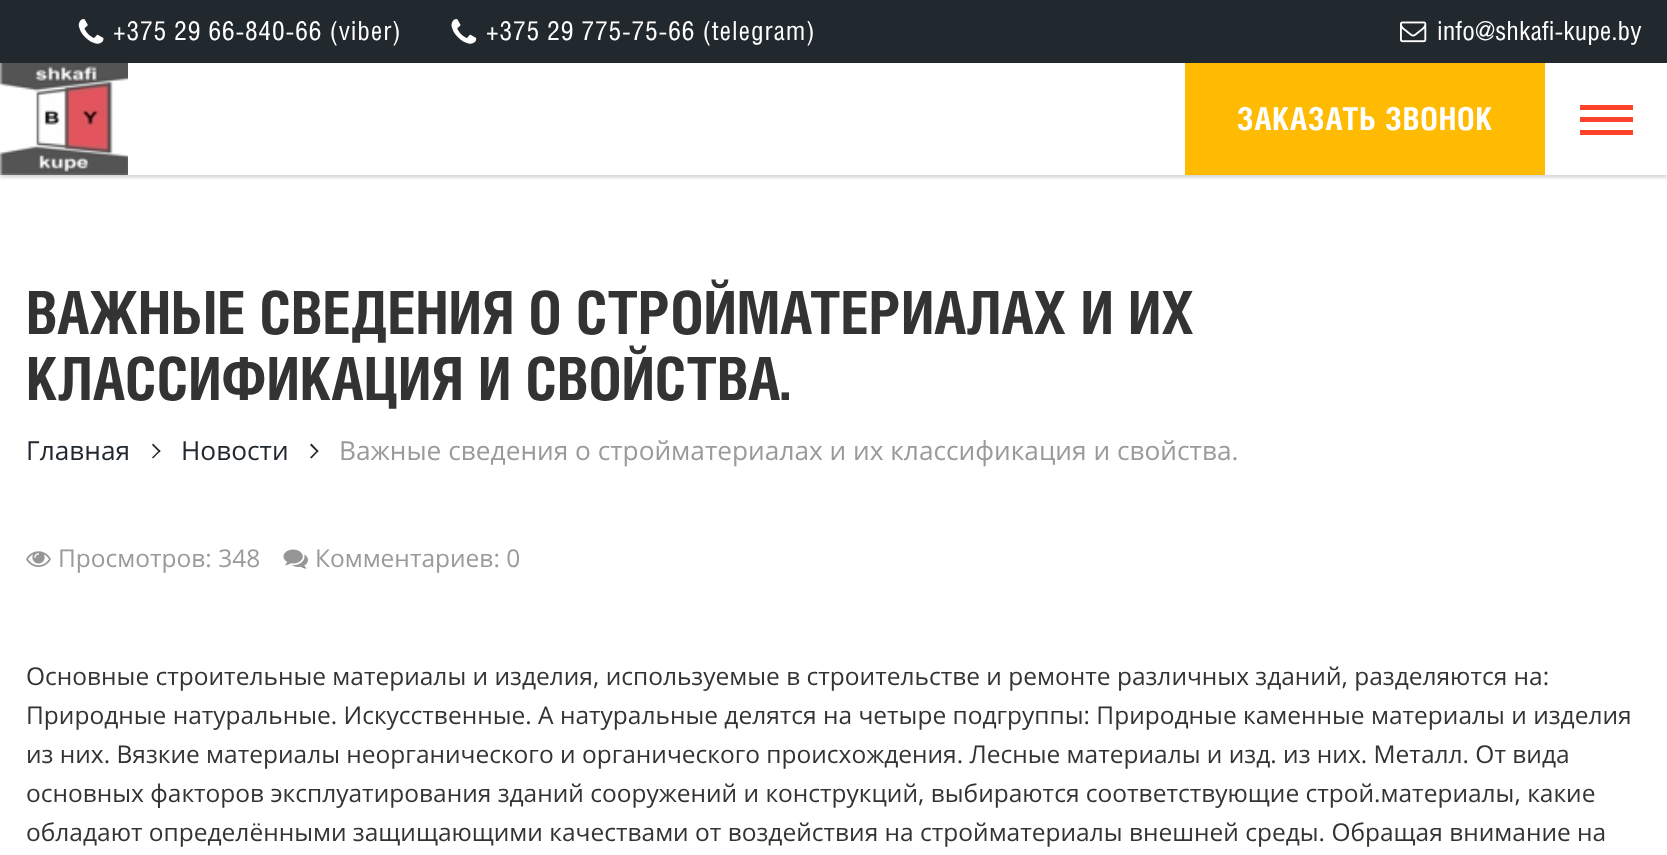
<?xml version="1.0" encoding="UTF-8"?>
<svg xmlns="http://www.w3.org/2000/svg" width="1667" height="855">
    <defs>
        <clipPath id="clip1"><rect x="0" y="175" width="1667" height="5"/></clipPath>
        <filter id="blur1" x="-50%" y="-200%" width="200%" height="500%"><feGaussianBlur stdDeviation="2"/></filter>
    </defs>
    <rect width="100%" height="100%" fill="#FFFFFF"/>
    <g clip-path="url(#clip1)">
        <rect x="0" y="2" width="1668" height="175" fill="#000000" fill-opacity="0.2" filter="url(#blur1)"/>
    </g>
    <rect x="0" y="0" width="1667" height="63" fill="#21282E"/>
    <image x="78" y="19" width="26" height="25" href="img_01.png"/>
    <text x="113" y="40" font-family="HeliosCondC" font-size="26.25" letter-spacing="0.9" fill="#FFFFFF">+375 29 66-840-66 (viber)</text>
    <image x="451" y="19" width="26" height="25" href="img_02.png"/>
    <text x="486" y="40" font-family="HeliosCondC" font-size="26.25" letter-spacing="0.9" fill="#FFFFFF">+375 29 775-75-66 (telegram)</text>
    <image x="1400" y="21" width="27" height="22" href="img_03.png"/>
    <text x="1437" y="40" font-family="HeliosCondC" font-size="26.25" fill="#FFFFFF">info@shkafi-kupe.by</text>
    <image x="0" y="63" width="128" height="112" href="img_04.png"/>
    <rect x="1185" y="63" width="360" height="112" fill="#FFBB02"/>
    <text x="1237" y="130" font-family="HeliosCondC" font-size="31.5" font-weight="700" letter-spacing="0.9" fill="#FFFFFF">ЗАКАЗАТЬ ЗВОНОК</text>
    <rect x="1580" y="105" width="53" height="5" fill="#FF4229"/>
    <rect x="1580" y="117" width="53" height="5" fill="#FF4229"/>
    <rect x="1580" y="130" width="53" height="5" fill="#FF4229"/>
    <text font-family="HeliosCondC" font-size="59.5" font-weight="700" fill="#333333">
        <tspan x="26" y="334">ВАЖНЫЕ СВЕДЕНИЯ О СТРОЙМАТЕРИАЛАХ И ИХ</tspan>
        <tspan x="26" y="400">КЛАССИФИКАЦИЯ И СВОЙСТВА.</tspan>
    </text>
    <text x="26" y="460" font-family="Open Sans" font-size="26.25" fill="#21282E">Главная</text>
    <path d="M 153 443.5 L 160.5 451 L 159.5 452.5 L 152 445 Z" fill="#21282E"/>
    <path d="M 159.5 450 L 160.5 451 L 153 458.5 L 152 457.5 Z" fill="#21282E"/>
    <text x="181" y="460" font-family="Open Sans" font-size="26.25" fill="#21282E">Новости</text>
    <path d="M 311.5 443.5 L 318.5 451 L 317.5 452.5 L 310 445 Z" fill="#21282E"/>
    <path d="M 317.5 450 L 318.5 451 L 311.5 458.5 L 310 457.5 Z" fill="#21282E"/>
    <text x="339" y="460" font-family="Open Sans" font-size="26.25" fill="#9A9A9A">Важные сведения о стройматериалах и их классификация и свойства.</text>
    <image x="26" y="551" width="25" height="16" href="img_05.png"/>
    <text x="58" y="567" font-family="Open Sans" font-size="24.5" fill="#9A9A9A">Просмотров: 348</text>
    <image x="283" y="549" width="25" height="20" href="img_06.png"/>
    <text x="315" y="567" font-family="Open Sans" font-size="24.5" fill="#9A9A9A">Комментариев: 0</text>
    <text font-family="Open Sans" font-size="24.5" fill="#333333">
        <tspan x="26" y="685">Основные строительные материалы и изделия, используемые в строительстве и ремонте различных зданий, разделяются на:</tspan>
        <tspan x="26" y="724">Природные натуральные. Искусственные. А натуральные делятся на четыре подгруппы: Природные каменные материалы и изделия</tspan>
        <tspan x="26" y="763">из них. Вязкие материалы неорганического и органического происхождения. Лесные материалы и изд. из них. Металл. От вида</tspan>
        <tspan x="26" y="802">основных факторов эксплуатирования зданий сооружений и конструкций, выбираются соответствующие строй.материалы, какие</tspan>
        <tspan x="26" y="841">обладают определёнными защищающими качествами от воздействия на стройматериалы внешней среды. Обращая внимание на</tspan>
    </text>
</svg>
